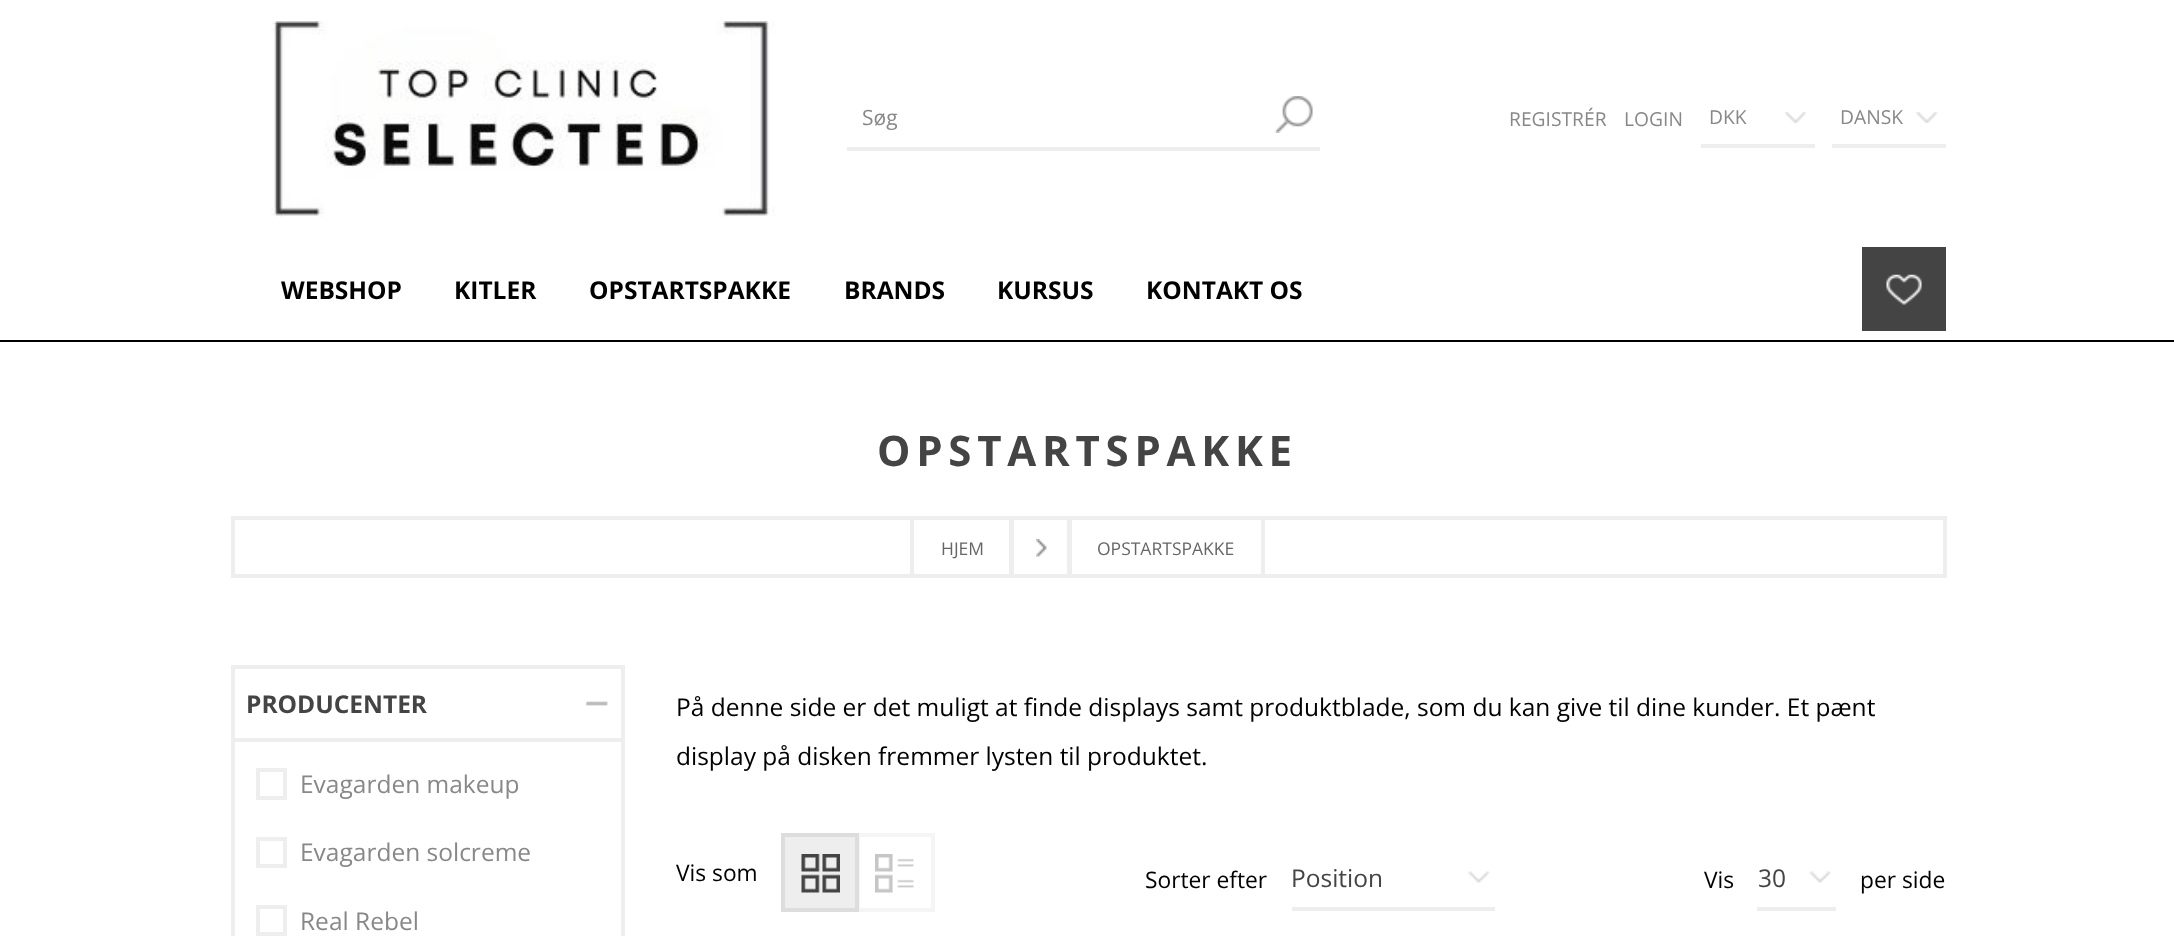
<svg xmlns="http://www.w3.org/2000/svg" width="2174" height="936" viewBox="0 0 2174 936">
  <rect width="100%" height="100%" fill="#ffffff"/>
  <image x="231" y="21" width="581" height="196" href="img1.png"/>
  <rect x="847" y="147" width="473" height="4" fill="#eeeeee"/>
  <text x="862" y="125" font-family="Open Sans" font-size="21" fill="#888888">Søg</text>
  <image x="1275" y="96" width="38" height="37" href="img2.png"/>
  <text x="1509" y="126" font-family="Open Sans" font-size="19.25" fill="#888888">REGISTRÉR</text>
  <text x="1624" y="126" font-family="Open Sans" font-size="19.25" fill="#888888">LOGIN</text>
  <rect x="1701" y="144" width="114" height="4" fill="#eeeeee"/>
  <image x="1785" y="112" width="21" height="12" href="img3.png"/>
  <text x="1709" y="124" font-family="Open Sans" font-size="19.25" fill="#888888">DKK</text>
  <rect x="1832" y="144" width="114" height="4" fill="#eeeeee"/>
  <image x="1916" y="112" width="22" height="12" href="img4.png"/>
  <text x="1840" y="124" font-family="Open Sans" font-size="19.25" fill="#888888">DANSK</text>
  <rect x="0" y="340" width="2174" height="2" fill="#000000"/>
  <text x="281" y="299" font-family="Open Sans" font-size="24.5" font-weight="bold" fill="#000000">WEBSHOP</text>
  <text x="454" y="299" font-family="Open Sans" font-size="24.5" font-weight="bold" fill="#000000">KITLER</text>
  <text x="589" y="299" font-family="Open Sans" font-size="24.5" font-weight="bold" fill="#000000">OPSTARTSPAKKE</text>
  <text x="844" y="299" font-family="Open Sans" font-size="24.5" font-weight="bold" fill="#000000">BRANDS</text>
  <text x="997" y="299" font-family="Open Sans" font-size="24.5" font-weight="bold" fill="#000000">KURSUS</text>
  <text x="1146" y="299" font-family="Open Sans" font-size="24.5" font-weight="bold" fill="#000000">KONTAKT OS</text>
  <rect x="1862" y="247" width="84" height="84" fill="#444444"/>
  <image x="1886" y="274" width="36" height="31" href="img5.png"/>
  <rect x="233" y="667" width="390" height="73" fill="none" stroke="#eeeeee" stroke-width="4"/>
  <image x="585" y="701" width="23" height="5" href="img6.png"/>
  <text x="246" y="713" font-family="Open Sans" font-size="24.5" font-weight="bold" fill="#444444">PRODUCENTER</text>
  <rect x="621" y="742" width="4" height="194" fill="#eeeeee"/>
  <rect x="231" y="742" width="4" height="194" fill="#eeeeee"/>
  <rect x="258" y="770" width="27" height="28" fill="none" stroke="#eeeeee" stroke-width="4"/>
  <text x="300" y="793" font-family="Open Sans" font-size="24.5" fill="#888888">Evagarden makeup</text>
  <rect x="258" y="839" width="27" height="27" fill="none" stroke="#eeeeee" stroke-width="4"/>
  <text x="300" y="861" font-family="Open Sans" font-size="24.5" fill="#888888">Evagarden solcreme</text>
  <rect x="258" y="907" width="27" height="27" fill="none" stroke="#eeeeee" stroke-width="4"/>
  <text x="300" y="930" font-family="Open Sans" font-size="24.5" fill="#888888">Real Rebel</text>
  <text x="877" y="466" font-family="Open Sans" font-size="42" font-weight="bold" letter-spacing="5.75" fill="#444444">OPSTARTSPAKKE</text>
  <text x="676" y="716" font-family="Open Sans" font-size="24.5" fill="#000000">På denne side er det muligt at finde displays samt produktblade, som du kan give til dine kunder. Et pænt</text>
  <text x="676" y="765" font-family="Open Sans" font-size="24.5" fill="#000000">display på disken fremmer lysten til produktet.</text>
  <text x="676" y="881" font-family="Open Sans" font-size="22.75" fill="#000000">Vis som</text>
  <rect x="785" y="837" width="70" height="71" fill="#eeeeee"/>
  <image x="801" y="854" width="39" height="39" href="img7.png"/>
  <rect x="783" y="835" width="74" height="75" fill="none" stroke="#dddddd" stroke-width="4"/>
  <image x="875" y="854" width="39" height="39" href="img8.png"/>
  <rect x="858" y="835" width="75" height="75" fill="none" stroke="#dddddd" stroke-opacity="0.3" stroke-width="4"/>
  <text x="1145" y="888" font-family="Open Sans" font-size="22.75" fill="#000000">Sorter efter</text>
  <image x="1468" y="871" width="22" height="12" href="img9.png"/>
  <rect x="1292" y="907" width="203" height="4" fill="#eeeeee"/>
  <text x="1291" y="887" font-family="Open Sans" font-size="24.5" fill="#444444">Position</text>
  <text x="1704" y="888" font-family="Open Sans" font-size="22.75" fill="#000000">Vis</text>
  <image x="1809" y="871" width="22" height="12" href="img10.png"/>
  <rect x="1757" y="907" width="79" height="4" fill="#eeeeee"/>
  <text x="1758" y="887" font-family="Open Sans" font-size="24.5" fill="#444444">30</text>
  <text x="1860" y="888" font-family="Open Sans" font-size="22.75" fill="#000000">per side</text>
  <rect x="231" y="516" width="1715" height="4" fill="#eeeeee"/>
  <rect x="1943" y="516" width="4" height="62" fill="#eeeeee"/>
  <rect x="231" y="516" width="4" height="62" fill="#eeeeee"/>
  <rect x="912" y="518" width="99" height="58" fill="none" stroke="#eeeeee" stroke-width="4"/>
  <text x="941" y="555" font-family="Open Sans" font-size="17.5" fill="#666666">HJEM</text>
  <image x="1036" y="539" width="11" height="18" href="img11.png"/>
  <rect x="1012" y="518" width="57" height="58" fill="none" stroke="#eeeeee" stroke-width="4"/>
  <rect x="1070" y="518" width="193" height="58" fill="none" stroke="#eeeeee" stroke-width="4"/>
  <text x="1097" y="555" font-family="Open Sans" font-size="17.5" fill="#666666">OPSTARTSPAKKE</text>
  <rect x="235" y="574" width="1708" height="4" fill="#eeeeee"/>
</svg>
